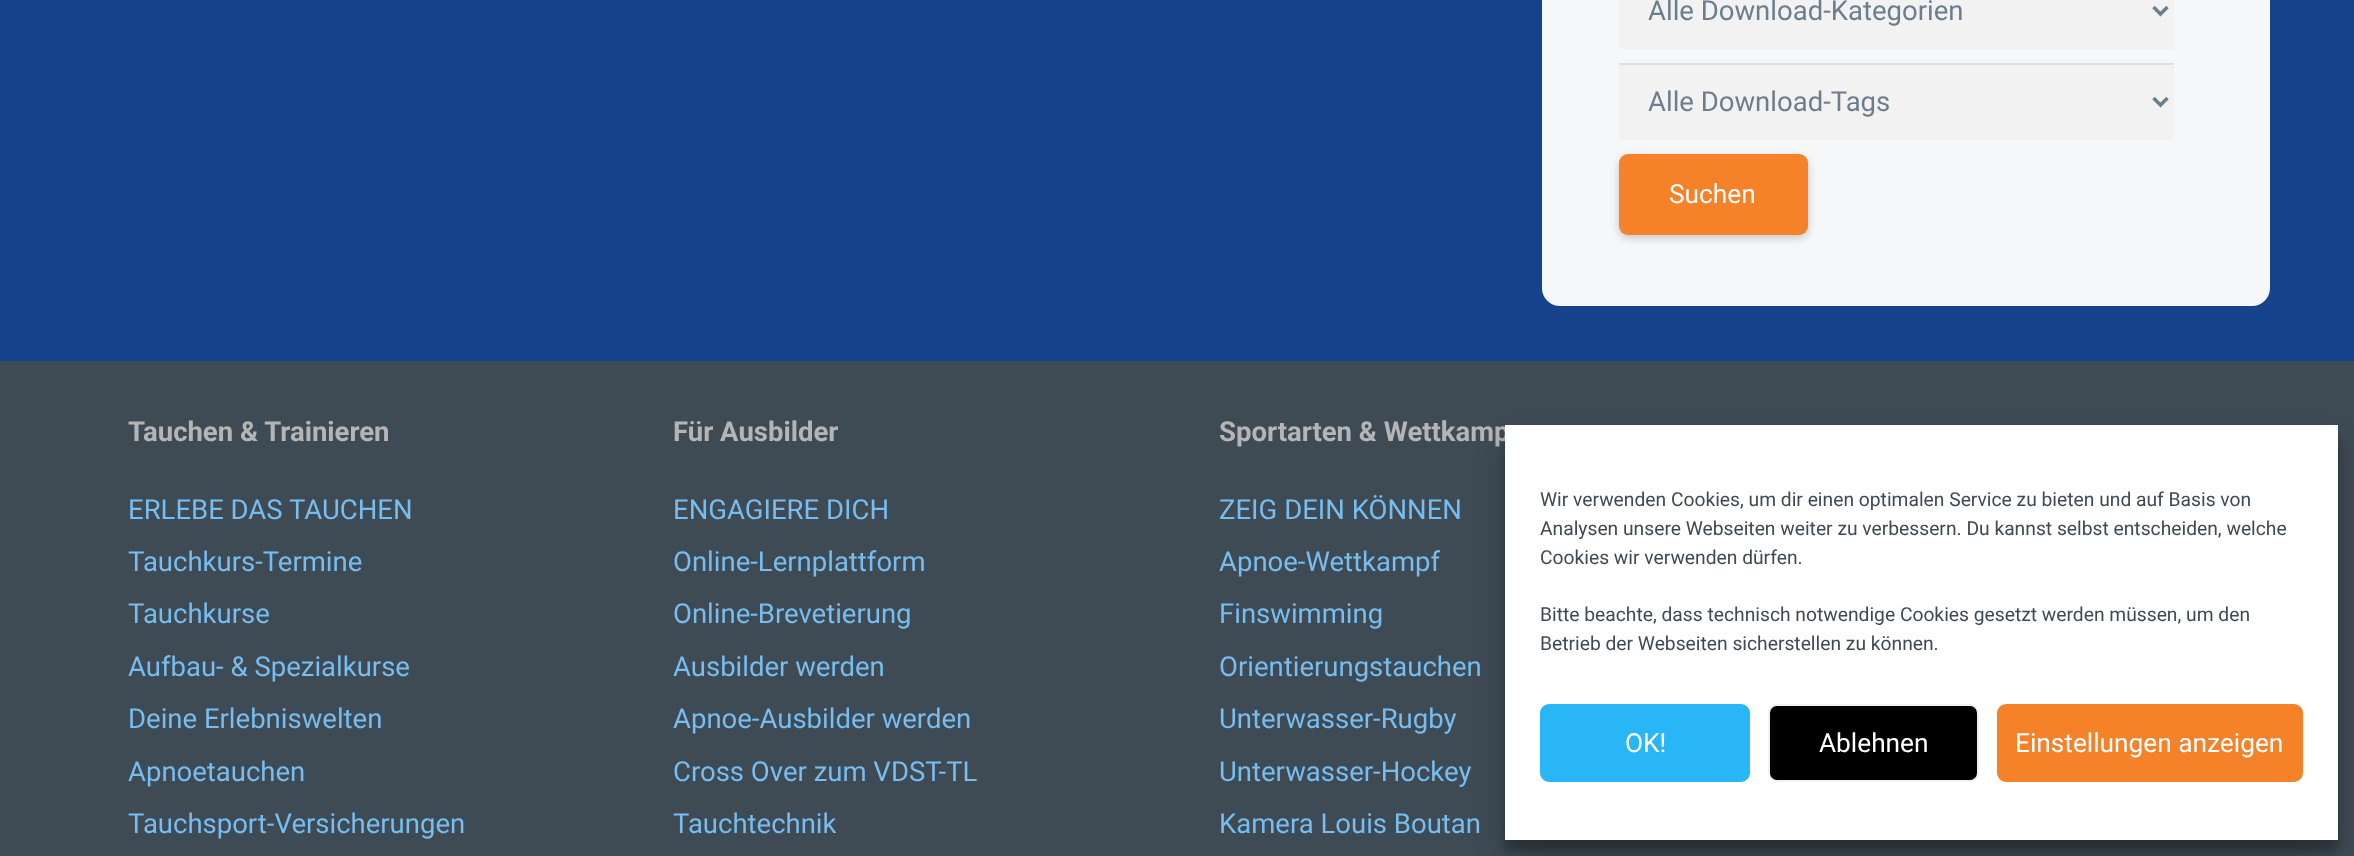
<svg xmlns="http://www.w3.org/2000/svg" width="2354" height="856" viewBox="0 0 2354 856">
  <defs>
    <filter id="blur1" x="-50%" y="-200%" width="200%" height="500%"><feGaussianBlur stdDeviation="4"/></filter>
    <filter id="blur2" x="-50%" y="-200%" width="200%" height="500%"><feGaussianBlur stdDeviation="5"/></filter>
    <filter id="blur3" x="-50%" y="-200%" width="200%" height="500%"><feGaussianBlur stdDeviation="17.5"/></filter>
  </defs>
  <rect width="100%" height="100%" fill="#17428c"/>
  <rect x="1542" y="-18" width="728" height="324" rx="18" fill="#f6f7f9"/>
  <rect x="1619" y="0" width="555" height="49" fill="#f2f2f2"/>
  <path d="M2153.5 7L2160.5 14L2167.5 7" fill="none" stroke="#6b7e8c" stroke-width="3.5"/>
  <text x="1648" y="20" font-family="Roboto" font-size="27.5" fill="#6b7e8c">Alle Download-Kategorien</text>
  <rect x="1619" y="65" width="555" height="75" fill="#f2f2f2"/>
  <rect x="1619" y="63" width="555" height="2" fill="#dfdfdf"/>
  <path d="M2153.5 98L2160.5 105L2167.5 98" fill="none" stroke="#6b7e8c" stroke-width="3.5"/>
  <text x="1648" y="111" font-family="Roboto" font-size="27.5" fill="#6b7e8c">Alle Download-Tags</text>
  <rect x="1619" y="158" width="189" height="80" rx="9" fill="#000000" fill-opacity="0.2" filter="url(#blur1)"/>
  <rect x="1619" y="154" width="189" height="81" rx="9" fill="#f58229"/>
  <text x="1669" y="203" font-family="Roboto" font-size="26.25" fill="#ffffff">Suchen</text>
  <rect x="0" y="361" width="2354" height="495" fill="#3e4a54"/>
  <text x="128" y="441" font-family="Roboto" font-size="27.5" font-weight="bold" fill="#b5b5b5">Tauchen &amp; Trainieren</text>
  <text x="128" y="519" font-family="Roboto" font-size="27.5" fill="#77bdef">ERLEBE DAS TAUCHEN</text>
  <text x="128" y="571" font-family="Roboto" font-size="27.5" fill="#77bdef">Tauchkurs-Termine</text>
  <text x="128" y="623" font-family="Roboto" font-size="27.5" fill="#77bdef">Tauchkurse</text>
  <text x="128" y="676" font-family="Roboto" font-size="27.5" fill="#77bdef">Aufbau- &amp; Spezialkurse</text>
  <text x="128" y="728" font-family="Roboto" font-size="27.5" fill="#77bdef">Deine Erlebniswelten</text>
  <text x="128" y="781" font-family="Roboto" font-size="27.5" fill="#77bdef">Apnoetauchen</text>
  <text x="128" y="833" font-family="Roboto" font-size="27.5" fill="#77bdef">Tauchsport-Versicherungen</text>
  <text x="673" y="441" font-family="Roboto" font-size="27.5" font-weight="bold" fill="#b5b5b5">Für Ausbilder</text>
  <text x="673" y="519" font-family="Roboto" font-size="27.5" fill="#77bdef">ENGAGIERE DICH</text>
  <text x="673" y="571" font-family="Roboto" font-size="27.5" fill="#77bdef">Online-Lernplattform</text>
  <text x="673" y="623" font-family="Roboto" font-size="27.5" fill="#77bdef">Online-Brevetierung</text>
  <text x="673" y="676" font-family="Roboto" font-size="27.5" fill="#77bdef">Ausbilder werden</text>
  <text x="673" y="728" font-family="Roboto" font-size="27.5" fill="#77bdef">Apnoe-Ausbilder werden</text>
  <text x="673" y="781" font-family="Roboto" font-size="27.5" fill="#77bdef">Cross Over zum VDST-TL</text>
  <text x="673" y="833" font-family="Roboto" font-size="27.5" fill="#77bdef">Tauchtechnik</text>
  <text x="1219" y="441" font-family="Roboto" font-size="27.5" font-weight="bold" fill="#b5b5b5">Sportarten &amp; Wettkamp</text>
  <text x="1219" y="519" font-family="Roboto" font-size="27.5" fill="#77bdef">ZEIG DEIN KÖNNEN</text>
  <text x="1219" y="571" font-family="Roboto" font-size="27.5" fill="#77bdef">Apnoe-Wettkampf</text>
  <text x="1219" y="623" font-family="Roboto" font-size="27.5" fill="#77bdef">Finswimming</text>
  <text x="1219" y="676" font-family="Roboto" font-size="27.5" fill="#77bdef">Orientierungstauchen</text>
  <text x="1219" y="728" font-family="Roboto" font-size="27.5" fill="#77bdef">Unterwasser-Rugby</text>
  <text x="1219" y="781" font-family="Roboto" font-size="27.5" fill="#77bdef">Unterwasser-Hockey</text>
  <text x="1219" y="833" font-family="Roboto" font-size="27.5" fill="#77bdef">Kamera Louis Boutan</text>
  <rect x="1505" y="436" width="833" height="415" fill="#000000" fill-opacity="0.23" filter="url(#blur2)"/>
  <rect x="1505" y="443" width="833" height="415" fill="#000000" fill-opacity="0.19" filter="url(#blur3)"/>
  <rect x="1505" y="425" width="833" height="415" fill="#ffffff"/>
  <text x="1540" y="506" font-family="Roboto" font-size="19.25" fill="#3e4a54">Wir verwenden Cookies, um dir einen optimalen Service zu bieten und auf Basis von</text>
  <text x="1540" y="535" font-family="Roboto" font-size="19.25" fill="#3e4a54">Analysen unsere Webseiten weiter zu verbessern. Du kannst selbst entscheiden, welche</text>
  <text x="1540" y="564" font-family="Roboto" font-size="19.25" fill="#3e4a54">Cookies wir verwenden dürfen.</text>
  <text x="1540" y="621" font-family="Roboto" font-size="19.25" fill="#3e4a54">Bitte beachte, dass technisch notwendige Cookies gesetzt werden müssen, um den</text>
  <text x="1540" y="650" font-family="Roboto" font-size="19.25" fill="#3e4a54">Betrieb der Webseiten sicherstellen zu können.</text>
  <rect x="1541" y="705" width="208" height="76" rx="8" fill="#29b6f6" stroke="#29b6f6" stroke-width="2"/>
  <text x="1625" y="752" font-family="Roboto" font-size="26.25" fill="#ffffff">OK!</text>
  <rect x="1769" y="705" width="209" height="76" rx="8" fill="#000000" stroke="#f1f1f1" stroke-width="2"/>
  <text x="1819" y="752" font-family="Roboto" font-size="26.25" fill="#ffffff">Ablehnen</text>
  <rect x="1998" y="705" width="304" height="76" rx="8" fill="#f58229" stroke="#f58229" stroke-width="2"/>
  <text x="2015" y="752" font-family="Roboto" font-size="26.25" fill="#ffffff">Einstellungen anzeigen</text>
</svg>
